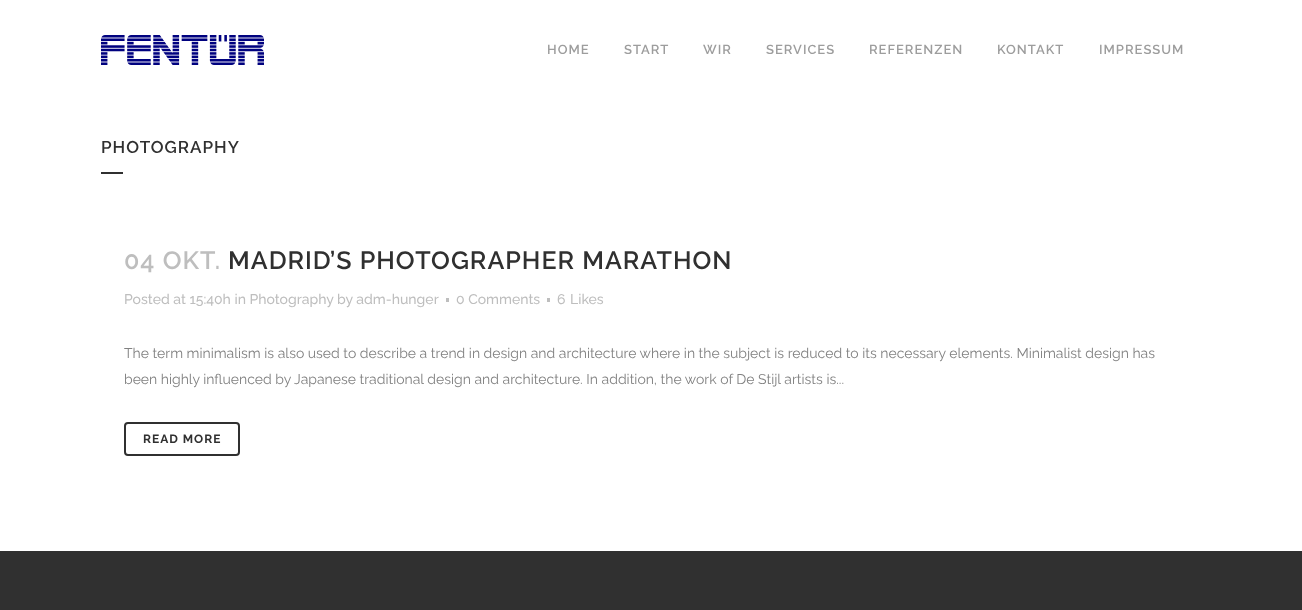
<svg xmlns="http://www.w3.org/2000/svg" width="1302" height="610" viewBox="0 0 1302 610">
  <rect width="100%" height="100%" fill="#303030"/>
  <rect x="0" y="0" width="1302" height="551" fill="#ffffff"/>
  <image x="101" y="35" width="163" height="30" href="img1.png"/>
  <text x="547" y="54" font-family="Raleway" font-size="13" font-weight="600" letter-spacing="1" fill="#9d9d9d">HOME</text>
  <text x="624" y="54" font-family="Raleway" font-size="13" font-weight="600" letter-spacing="1" fill="#9d9d9d">START</text>
  <text x="703" y="54" font-family="Raleway" font-size="13" font-weight="600" letter-spacing="1" fill="#9d9d9d">WIR</text>
  <text x="766" y="54" font-family="Raleway" font-size="13" font-weight="600" letter-spacing="1" fill="#9d9d9d">SERVICES</text>
  <text x="869" y="54" font-family="Raleway" font-size="13" font-weight="600" letter-spacing="1" fill="#9d9d9d">REFERENZEN</text>
  <text x="997" y="54" font-family="Raleway" font-size="13" font-weight="600" letter-spacing="1" fill="#9d9d9d">KONTAKT</text>
  <text x="1099" y="54" font-family="Raleway" font-size="13" font-weight="600" letter-spacing="1" fill="#9d9d9d">IMPRESSUM</text>
  <text x="101" y="153" font-family="Raleway" font-size="17" font-weight="600" letter-spacing="1" fill="#303030">PHOTOGRAPHY</text>
  <rect x="101" y="172" width="22" height="2" fill="#303030"/>
  <text x="124" y="269" font-family="Raleway" font-size="25" font-weight="600" letter-spacing="1" fill="#bebebe">04 OKT.</text>
  <text x="228" y="269" font-family="Raleway" font-size="25" font-weight="600" letter-spacing="1" fill="#303030">MADRID’S PHOTOGRAPHER MARATHON</text>
  <text x="124" y="304" font-family="Raleway" font-size="14" font-weight="500" fill="#bebebe">Posted at 15:40h in Photography</text>
  <text x="337" y="304" font-family="Raleway" font-size="14" font-weight="500" fill="#bebebe">by adm-hunger</text>
  <rect x="446" y="298" width="3" height="4" fill="#bebebe"/>
  <text x="456" y="304" font-family="Raleway" font-size="14" font-weight="500" fill="#bebebe">0 Comments</text>
  <rect x="547" y="298" width="3" height="4" fill="#bebebe"/>
  <text x="557" y="304" font-family="Raleway" font-size="14" font-weight="500" fill="#bebebe">6</text>
  <text x="570" y="304" font-family="Raleway" font-size="14" font-weight="500" fill="#bebebe">Likes</text>
  <text x="124" y="358" font-family="Raleway" font-size="14" fill="#818181">The term minimalism is also used to describe a trend in design and architecture where in the subject is reduced to its necessary elements. Minimalist design has</text>
  <text x="124" y="384" font-family="Raleway" font-size="14" fill="#818181">been highly influenced by Japanese traditional design and architecture. In addition, the work of De Stijl artists is...</text>
  <rect x="125" y="423" width="114" height="32" rx="3" fill="none" stroke="#303030" stroke-width="2"/>
  <text x="143" y="443" font-family="Raleway" font-size="12" font-weight="bold" letter-spacing="1" fill="#303030">READ MORE</text>
</svg>
